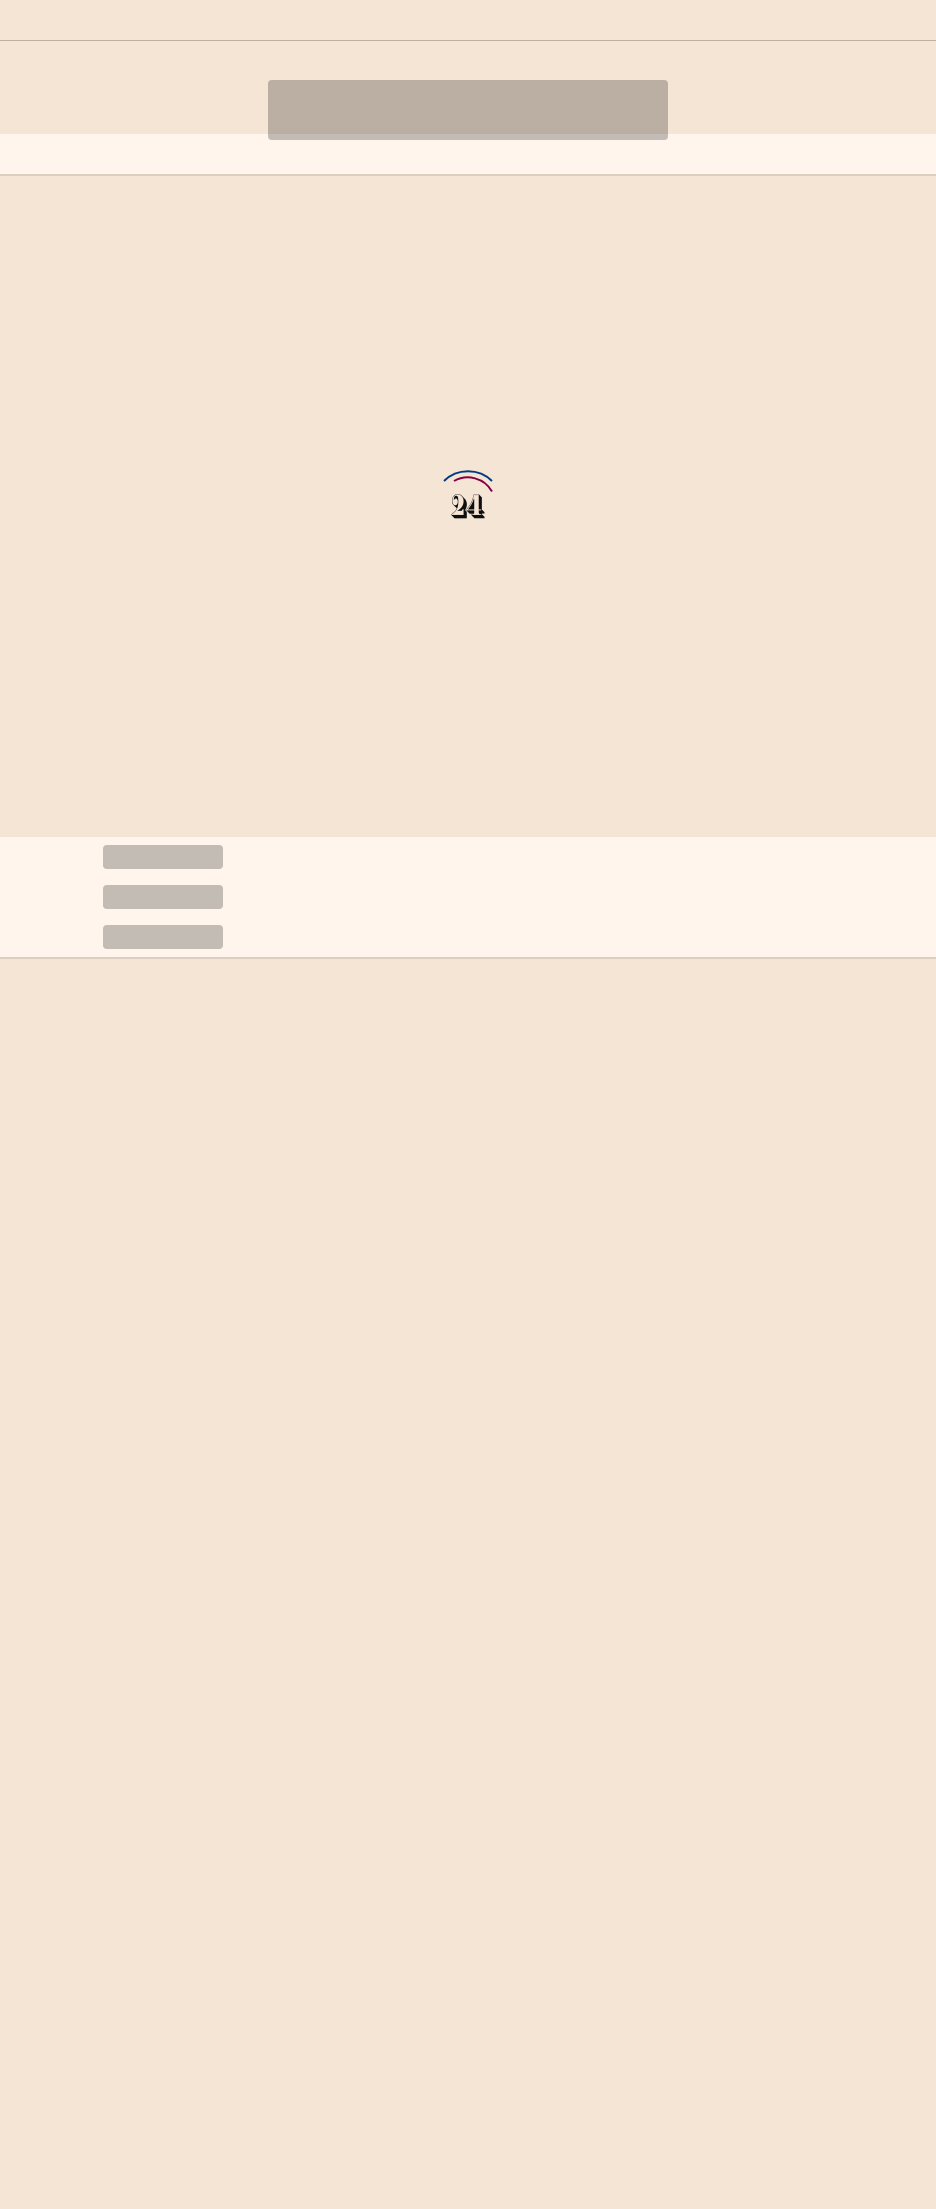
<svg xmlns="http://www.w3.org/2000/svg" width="936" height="2209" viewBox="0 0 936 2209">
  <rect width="100%" height="100%" fill="#f5e5d5"/>
  <rect x="0" y="174" width="936" height="2" fill="#ddcec0"/>
  <rect x="0" y="134" width="936" height="40" fill="#fff5ec"/>
  <rect x="0" y="40" width="936" height="1" fill="#bcb0a4"/>
  <rect x="268" y="80" width="400" height="60" rx="4" fill="#0f0f0f" fill-opacity="0.25"/>
  <path d="M444 481C457 468 479 468 492 481" fill="none" stroke="#003c7f" stroke-width="2"/>
  <path d="M454 481C467 473.5 484.5 478 492 491.5" fill="none" stroke="#870042" stroke-width="2"/>
  <image x="451" y="494" width="34" height="25" href="img1.png"/>
  <rect x="0" y="837" width="936" height="120" fill="#fff5ec"/>
  <rect x="103" y="845" width="120" height="24" rx="4" fill="#c3bcb5"/>
  <rect x="103" y="885" width="120" height="24" rx="4" fill="#c3bcb5"/>
  <rect x="0" y="957" width="936" height="2" fill="#ddcec0"/>
  <rect x="103" y="925" width="120" height="24" rx="4" fill="#c3bcb5"/>
</svg>
